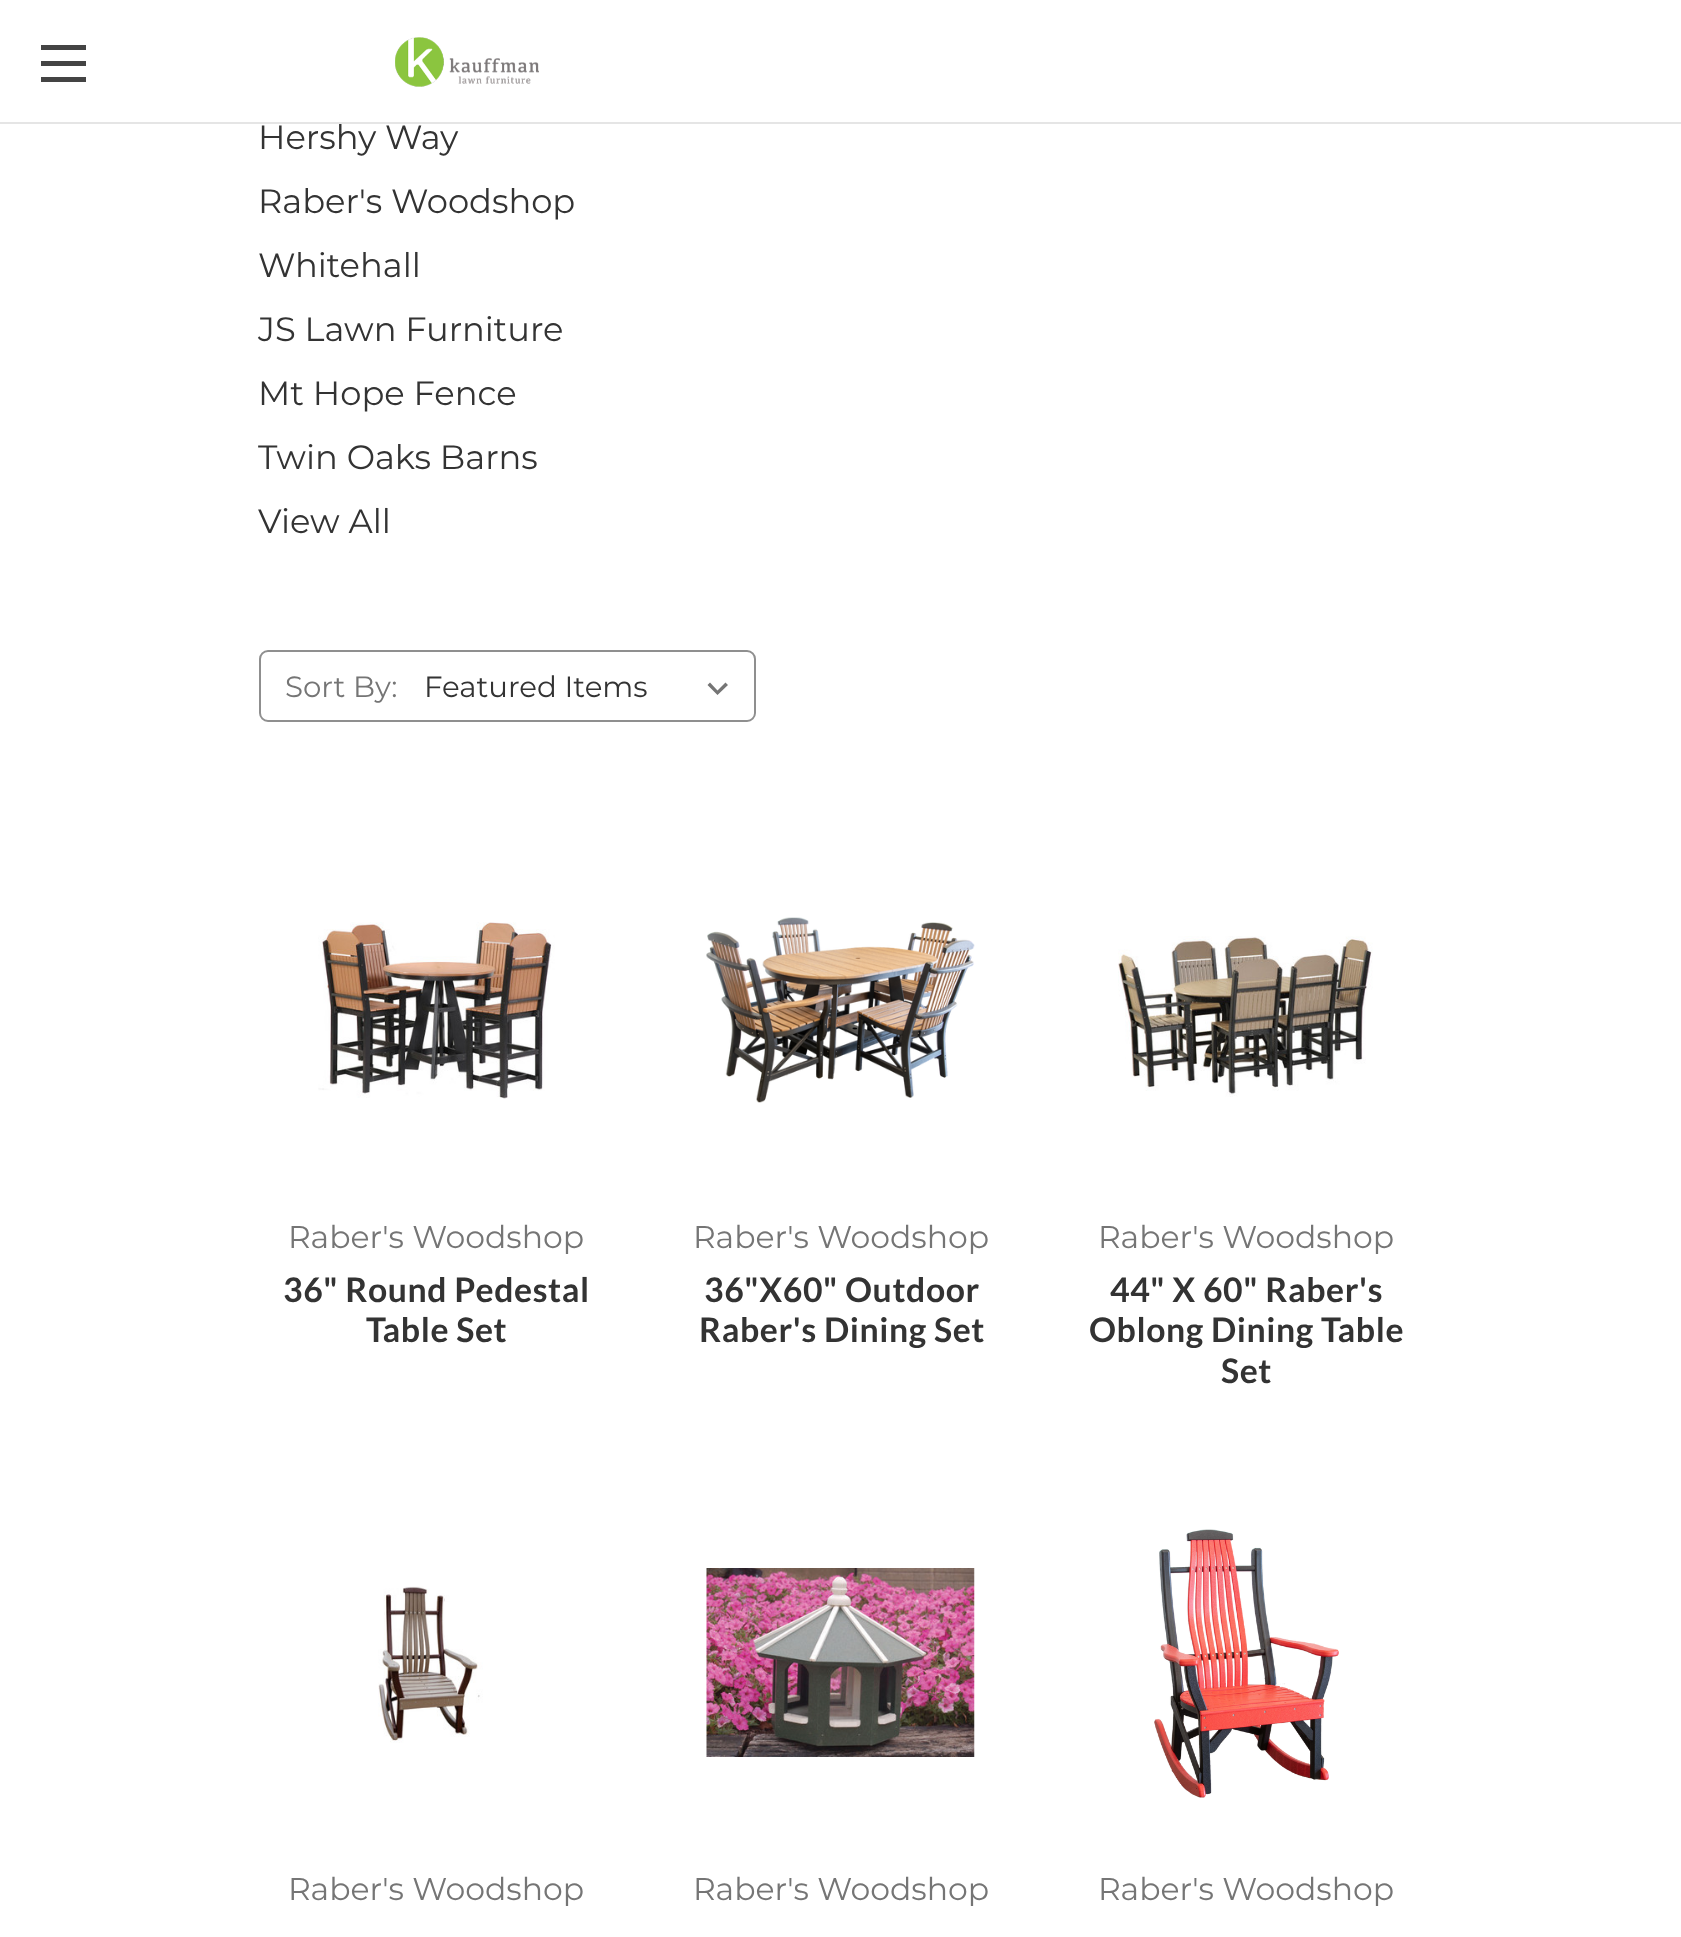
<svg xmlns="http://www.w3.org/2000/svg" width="1681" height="1937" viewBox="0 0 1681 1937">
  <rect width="100%" height="100%" fill="#ffffff"/>
  <text x="258" y="149" font-family="Montserrat" font-size="33.75" fill="#333333">Hershy Way</text>
  <rect x="0" y="122" width="1681" height="2" fill="#e5e5e5"/>
  <rect x="41" y="61" width="45" height="5" fill="#444444"/>
  <rect x="41" y="45" width="45" height="5" fill="#444444"/>
  <rect x="41" y="77" width="45" height="5" fill="#444444"/>
  <image x="395" y="37" width="144" height="50" href="img1.png"/>
  <text x="258" y="213" font-family="Montserrat" font-size="33.75" fill="#333333">Raber's Woodshop</text>
  <text x="258" y="277" font-family="Montserrat" font-size="33.75" fill="#333333">Whitehall</text>
  <text x="258" y="341" font-family="Montserrat" font-size="33.75" fill="#333333">JS Lawn Furniture</text>
  <text x="258" y="405" font-family="Montserrat" font-size="33.75" fill="#333333">Mt Hope Fence</text>
  <text x="258" y="469" font-family="Montserrat" font-size="33.75" fill="#333333">Twin Oaks Barns</text>
  <text x="258" y="533" font-family="Montserrat" font-size="33.75" fill="#333333">View All</text>
  <rect x="260" y="651" width="495" height="70" rx="8" fill="none" stroke="#8f8f8f" stroke-width="2"/>
  <text x="285" y="697" font-family="Montserrat" font-size="29.25" fill="#757575">Sort By:</text>
  <rect x="419" y="653" width="335" height="67" rx="9" fill="#ffffff"/>
  <path d="M725.5 682.5L717.5 690.5L710 682.5L707.5 685L717.5 695L728 685Z" fill="#757575"/>
  <text x="424" y="697" font-family="Montserrat" font-size="29.25" fill="#333333">Featured Items</text>
  <image x="318" y="922" width="237" height="177" href="img2.png"/>
  <text x="288" y="1248" font-family="Montserrat" font-size="31.5" fill="#757575">Raber's Woodshop</text>
  <text x="283" y="1302" font-family="Lato" font-size="33.75" font-weight="bold" letter-spacing="0.6" fill="#333333">36" Round Pedestal</text>
  <text x="366" y="1342" font-family="Lato" font-size="33.75" font-weight="bold" letter-spacing="0.6" fill="#333333">Table Set</text>
  <image x="706" y="917" width="269" height="186" href="img3.png"/>
  <text x="693" y="1248" font-family="Montserrat" font-size="31.5" fill="#757575">Raber's Woodshop</text>
  <text x="704" y="1302" font-family="Lato" font-size="33.75" font-weight="bold" letter-spacing="0.6" fill="#333333">36"X60" Outdoor</text>
  <text x="699" y="1342" font-family="Lato" font-size="33.75" font-weight="bold" letter-spacing="0.6" fill="#333333">Raber's Dining Set</text>
  <image x="1118" y="936" width="255" height="161" href="img4.png"/>
  <text x="1098" y="1248" font-family="Montserrat" font-size="31.5" fill="#757575">Raber's Woodshop</text>
  <text x="1110" y="1302" font-family="Lato" font-size="33.75" font-weight="bold" letter-spacing="0.6" fill="#333333">44" X 60" Raber's</text>
  <text x="1089" y="1342" font-family="Lato" font-size="33.75" font-weight="bold" letter-spacing="0.6" fill="#333333">Oblong Dining Table</text>
  <text x="1221" y="1383" font-family="Lato" font-size="33.75" font-weight="bold" letter-spacing="0.6" fill="#333333">Set</text>
  <image x="378" y="1586" width="105" height="157" href="img5.png"/>
  <text x="288" y="1900" font-family="Montserrat" font-size="31.5" fill="#757575">Raber's Woodshop</text>
  <image x="706" y="1568" width="269" height="189" href="img6.png"/>
  <text x="693" y="1900" font-family="Montserrat" font-size="31.5" fill="#757575">Raber's Woodshop</text>
  <image x="1154" y="1529" width="185" height="269" href="img7.png"/>
  <text x="1098" y="1900" font-family="Montserrat" font-size="31.5" fill="#757575">Raber's Woodshop</text>
</svg>
